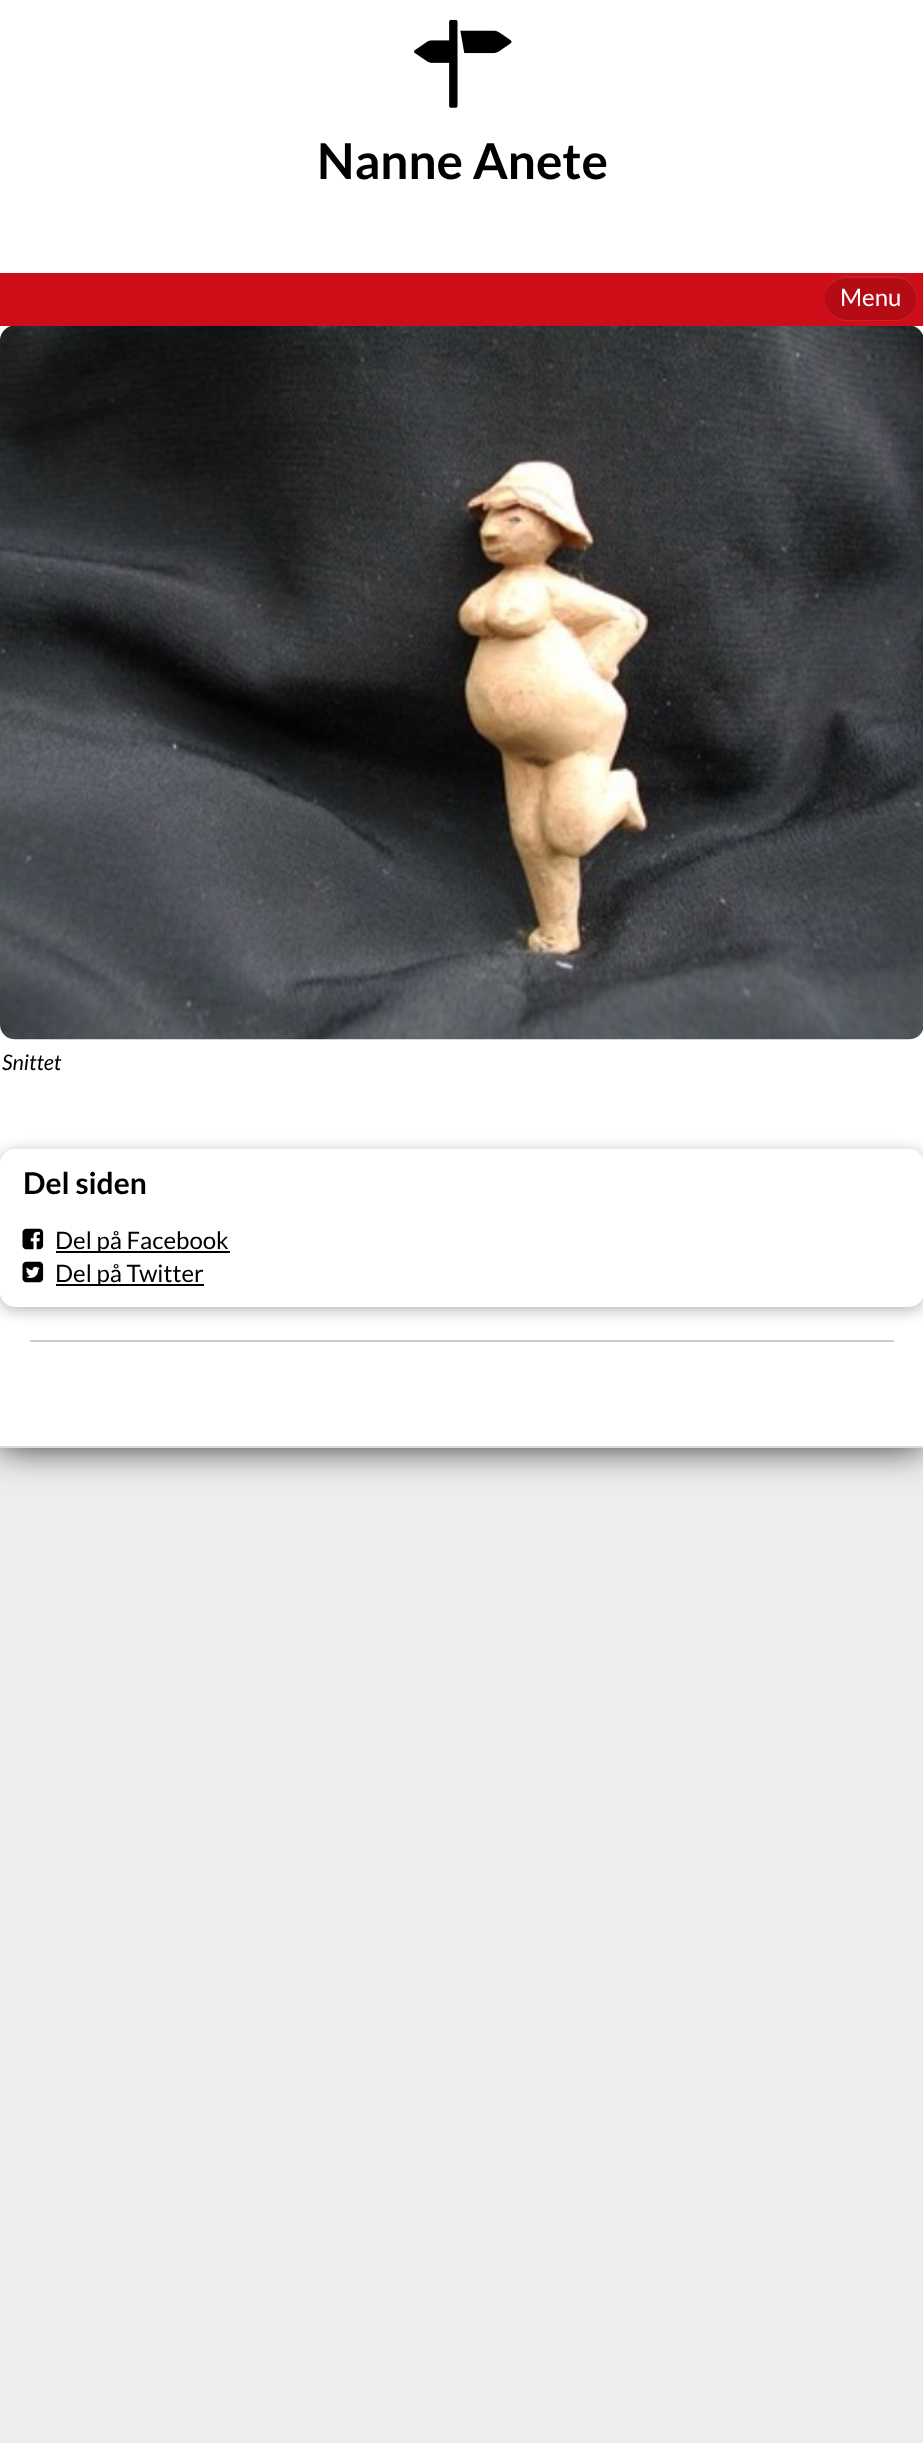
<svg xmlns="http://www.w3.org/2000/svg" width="923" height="2443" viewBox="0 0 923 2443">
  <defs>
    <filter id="blur1" x="-50%" y="-200%" width="200%" height="500%"><feGaussianBlur stdDeviation="18"/></filter>
    <filter id="blur2" x="-50%" y="-200%" width="200%" height="500%"><feGaussianBlur stdDeviation="7.5"/></filter>
  </defs>
  <rect width="100%" height="100%" fill="#ededed"/>
  <rect x="0" y="0" width="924" height="1448" fill="#000000" fill-opacity="0.8" filter="url(#blur1)"/>
  <rect x="0" y="0" width="923" height="1446" fill="#ffffff"/>
  <rect x="0" y="1446" width="923" height="2" fill="#d9d9d9"/>
  <image x="414" y="19" width="98" height="89" href="img1.png"/>
  <text x="317" y="179" font-family="Lato" font-size="49.5" font-weight="bold" fill="#000000">Nanne Anete</text>
  <rect x="0" y="273" width="923" height="53" fill="#cd0d18"/>
  <path d="M825 299V300C825 311 835 321 846 321H896C907 321 917 311 917 300C917 297 917 295 916 293V298C916 310 907 320 895 320H847C835 320 825 310 825 299Z" fill="#d11f29"/>
  <rect x="825" y="276" width="92" height="44" rx="22" fill="#b50b15"/>
  <path d="M847 278H895C907 278 916 287 916 299C916 304 915 308 912 312C915 308 917 303 917 298C917 286 907 276 895 276H847C835 276 825 286 825 298V299C825 287 835 278 847 278Z" fill="#ffffff" fill-opacity="0.1"/>
  <text x="840" y="306" font-family="Lato" font-size="24" fill="#ffffff">Menu</text>
  <image x="0" y="326" width="923" height="714" href="img2.png"/>
  <text x="2" y="1070" font-family="Lato" font-size="21.5" font-style="italic" fill="#000000">Snittet</text>
  <rect x="0" y="1152" width="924" height="158" rx="15" fill="#000000" fill-opacity="0.29" filter="url(#blur2)"/>
  <rect x="0" y="1149" width="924" height="158" rx="15" fill="#ffffff"/>
  <text x="23" y="1194" font-family="Lato" font-size="30" font-weight="bold" fill="#000000">Del siden</text>
  <image x="22" y="1228" width="22" height="22" href="img3.png"/>
  <rect x="56" y="1251" width="174" height="2" fill="#000000"/>
  <text x="55" y="1249" font-family="Lato" font-size="24" fill="#000000">Del på Facebook</text>
  <image x="22" y="1261" width="22" height="22" href="img4.png"/>
  <rect x="56" y="1284" width="148" height="2" fill="#000000"/>
  <text x="55" y="1282" font-family="Lato" font-size="24" fill="#000000">Del på Twitter</text>
  <rect x="30" y="1340" width="864" height="2" fill="#cccccc"/>
</svg>
